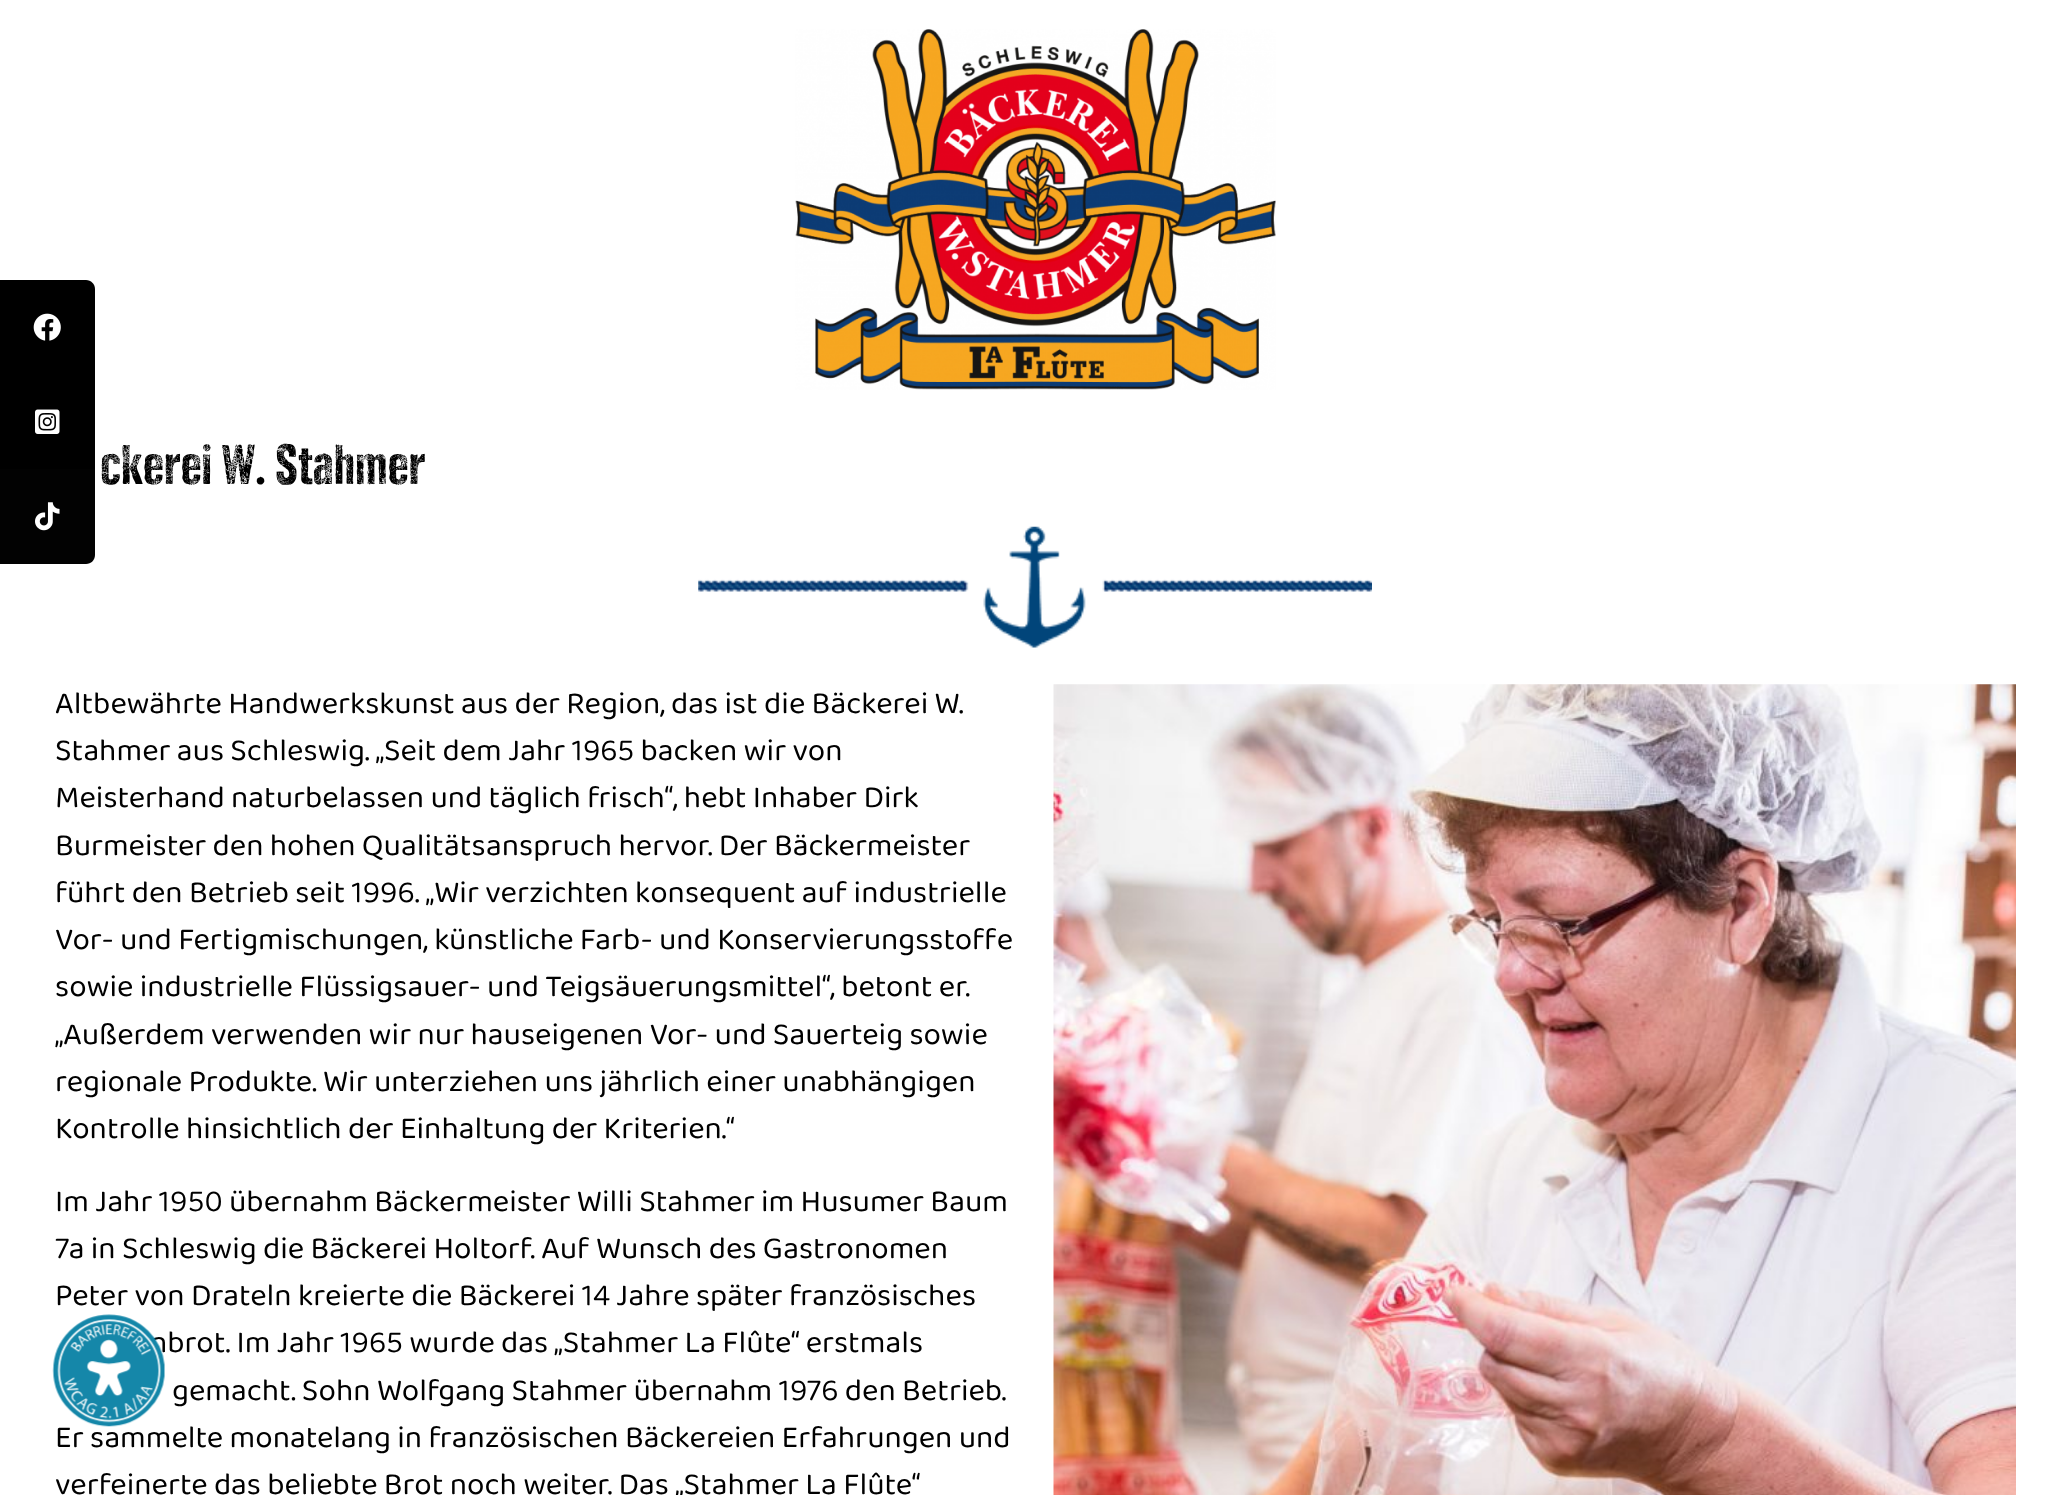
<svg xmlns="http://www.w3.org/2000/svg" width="2069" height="1495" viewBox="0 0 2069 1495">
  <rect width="100%" height="100%" fill="#ffffff"/>
  <path d="M0 280H86C91 280 95 284 95 289V375H0Z" fill="#000000"/>
  <image x="33" y="313" width="28" height="28" href="img1.png"/>
  <rect x="0" y="375" width="95" height="94" fill="#000000"/>
  <image x="35" y="409" width="25" height="25" href="img2.png"/>
  <path d="M0 469H95V555C95 560 91 564 86 564H0Z" fill="#020202"/>
  <image x="35" y="502" width="25" height="29" href="img3.png"/>
  <image x="795" y="29" width="481" height="361" href="img4.png"/>
  <text x="100" y="484" font-family="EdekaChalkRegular" font-size="56" fill="#000000">ckerei W. Stahmer</text>
  <image x="698" y="526" width="674" height="122" href="img5.png"/>
  <text x="55" y="713" font-family="'Baloo Bhaina 2'" font-size="31.5" fill="#000000">Altbewährte Handwerkskunst aus der Region, das ist die Bäckerei W.</text>
  <text x="55" y="760" font-family="'Baloo Bhaina 2'" font-size="31.5" fill="#000000">Stahmer aus Schleswig. „Seit dem Jahr 1965 backen wir von</text>
  <text x="55" y="807" font-family="'Baloo Bhaina 2'" font-size="31.5" fill="#000000">Meisterhand naturbelassen und täglich frisch“, hebt Inhaber Dirk</text>
  <text x="55" y="855" font-family="'Baloo Bhaina 2'" font-size="31.5" fill="#000000">Burmeister den hohen Qualitätsanspruch hervor. Der Bäckermeister</text>
  <text x="55" y="902" font-family="'Baloo Bhaina 2'" font-size="31.5" fill="#000000">führt den Betrieb seit 1996. „Wir verzichten konsequent auf industrielle</text>
  <text x="55" y="949" font-family="'Baloo Bhaina 2'" font-size="31.5" fill="#000000">Vor- und Fertigmischungen, künstliche Farb- und Konservierungsstoffe</text>
  <text x="55" y="996" font-family="'Baloo Bhaina 2'" font-size="31.5" fill="#000000">sowie industrielle Flüssigsauer- und Teigsäuerungsmittel“, betont er.</text>
  <text x="55" y="1044" font-family="'Baloo Bhaina 2'" font-size="31.5" fill="#000000">„Außerdem verwenden wir nur hauseigenen Vor- und Sauerteig sowie</text>
  <text x="55" y="1091" font-family="'Baloo Bhaina 2'" font-size="31.5" fill="#000000">regionale Produkte. Wir unterziehen uns jährlich einer unabhängigen</text>
  <text x="55" y="1138" font-family="'Baloo Bhaina 2'" font-size="31.5" fill="#000000">Kontrolle hinsichtlich der Einhaltung der Kriterien.“</text>
  <text x="55" y="1211" font-family="'Baloo Bhaina 2'" font-size="31.5" fill="#000000">Im Jahr 1950 übernahm Bäckermeister Willi Stahmer im Husumer Baum</text>
  <text x="55" y="1258" font-family="'Baloo Bhaina 2'" font-size="31.5" fill="#000000">7a in Schleswig die Bäckerei Holtorf. Auf Wunsch des Gastronomen</text>
  <text x="55" y="1305" font-family="'Baloo Bhaina 2'" font-size="31.5" fill="#000000">Peter von Drateln kreierte die Bäckerei 14 Jahre später französisches</text>
  <text x="150" y="1352" font-family="'Baloo Bhaina 2'" font-size="31.5" fill="#000000">nbrot. Im Jahr 1965 wurde das „Stahmer La Flûte“ erstmals</text>
  <text x="172" y="1400" font-family="'Baloo Bhaina 2'" font-size="31.5" fill="#000000">gemacht. Sohn Wolfgang Stahmer übernahm 1976 den Betrieb.</text>
  <text x="55" y="1447" font-family="'Baloo Bhaina 2'" font-size="31.5" fill="#000000">Er sammelte monatelang in französischen Bäckereien Erfahrungen und</text>
  <text x="55" y="1494" font-family="'Baloo Bhaina 2'" font-size="31.5" fill="#000000">verfeinerte das beliebte Brot noch weiter. Das „Stahmer La Flûte“</text>
  <image x="1053" y="684" width="963" height="811" href="img6.png"/>
  <image x="52" y="1314" width="113" height="113" href="img7.png"/>
</svg>
